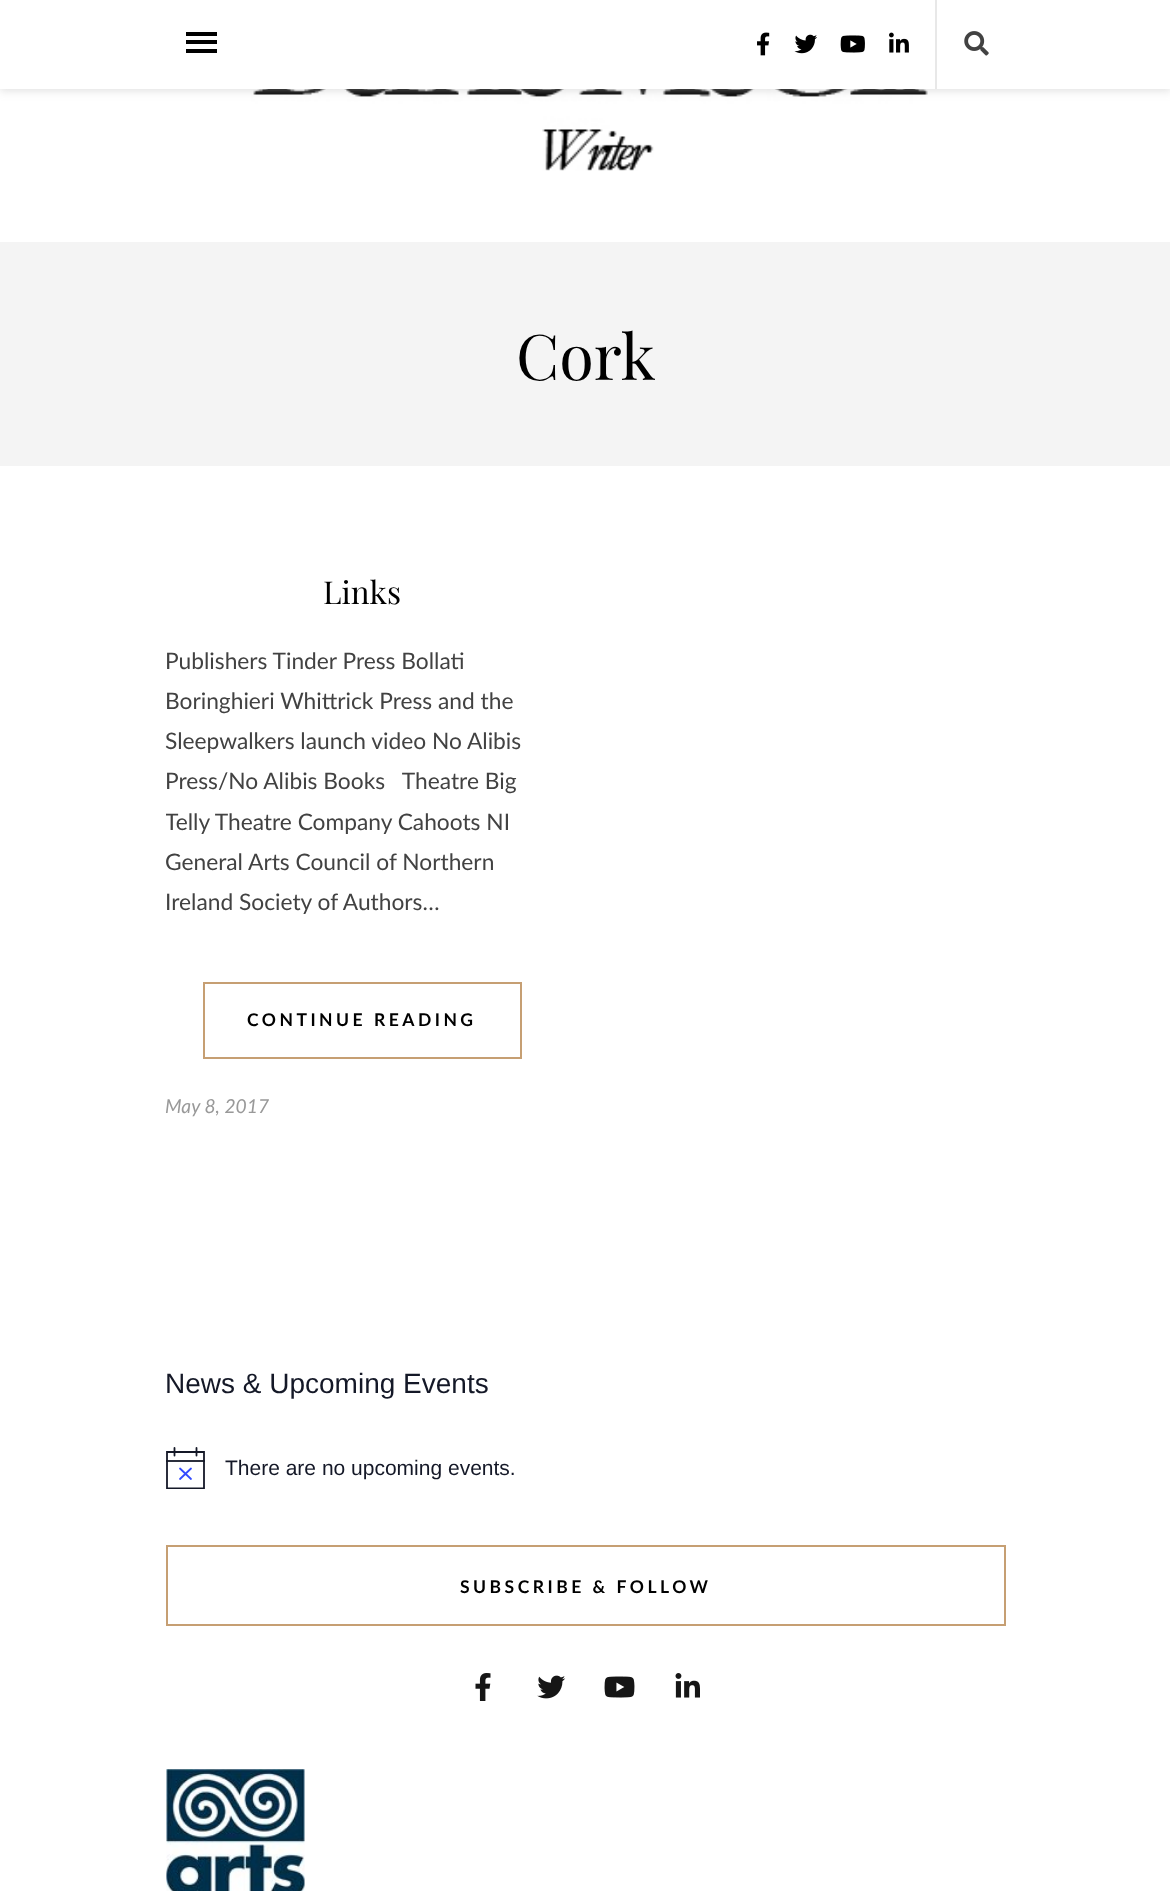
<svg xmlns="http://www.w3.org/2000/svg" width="1170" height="1891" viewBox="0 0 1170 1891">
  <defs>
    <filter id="blur1" x="-50%" y="-200%" width="200%" height="500%"><feGaussianBlur stdDeviation="4.5"/></filter>
    <clipPath id="clip1"><rect x="166" y="571" width="840" height="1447"/></clipPath>
    <clipPath id="clip2"><rect x="166" y="1447" width="39" height="42"/></clipPath>
  </defs>
  <rect width="100%" height="100%" fill="#ffffff"/>
  <image x="251" y="89" width="677" height="82" href="img6.png"/>
  <rect x="0" y="2" width="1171" height="89" fill="#bebebe" fill-opacity="0.46" filter="url(#blur1)"/>
  <rect x="0" y="0" width="1170" height="89" fill="#ffffff"/>
  <rect x="186" y="32" width="31" height="4" fill="#000000"/>
  <rect x="186" y="40" width="31" height="4" fill="#000000"/>
  <rect x="186" y="49" width="31" height="4" fill="#000000"/>
  <image x="757" y="32" width="13" height="24" href="img1.png"/>
  <image x="794" y="34" width="23" height="20" href="img2.png"/>
  <image x="840" y="35" width="25" height="18" href="img3.png"/>
  <image x="889" y="32" width="20" height="21" href="img4.png"/>
  <rect x="935" y="0" width="2" height="89" fill="#e8e8e8"/>
  <image x="964" y="31" width="25" height="25" href="img5.png"/>
  <rect x="0" y="242" width="1170" height="224" fill="#f4f4f4"/>
  <text x="516" y="380" font-family="Playfair Display" font-size="63" fill="#000000">Cork</text>
  <text x="323" y="604" font-family="Playfair Display" font-size="31.5" fill="#000000">Links</text>
  <text x="165" y="669" font-family="Lato" font-size="22.75" fill="#424242">Publishers Tinder Press Bollati</text>
  <text x="165" y="709" font-family="Lato" font-size="22.75" fill="#424242">Boringhieri Whittrick Press and the</text>
  <text x="165" y="749" font-family="Lato" font-size="22.75" fill="#424242">Sleepwalkers launch video No Alibis</text>
  <text x="165" y="789" font-family="Lato" font-size="22.75" fill="#424242" xml:space="preserve">Press/No Alibis Books   Theatre Big</text>
  <g clip-path="url(#clip1)">
    <text x="165" y="830" font-family="Lato" font-size="22.75" fill="#424242">Telly Theatre Company Cahoots NI</text>
  </g>
  <text x="165" y="870" font-family="Lato" font-size="22.75" fill="#424242">General Arts Council of Northern</text>
  <text x="165" y="910" font-family="Lato" font-size="22.75" fill="#424242">Ireland Society of Authors…</text>
  <rect x="204" y="983" width="317" height="75" fill="none" stroke="#c69f73" stroke-width="2"/>
  <text x="247" y="1026" font-family="Lato" font-size="17.5" font-weight="bold" letter-spacing="3.5" fill="#000000">CONTINUE READING</text>
  <text x="165" y="1113" font-family="Lato" font-size="19.25" font-style="italic" fill="#999999">May 8, 2017</text>
  <text x="165" y="1393" font-family="Liberation Sans" font-size="28" fill="#141827">News &amp; Upcoming Events</text>
  <g clip-path="url(#clip2)">
    <path d="M167 1452H204V1488.5H167Z" fill="none" stroke="#141827" stroke-width="1.8"/>
  </g>
  <path d="M180 1468.5L191 1479M191 1468.5L180 1479" fill="none" stroke="#334aff" stroke-width="1.8" stroke-linecap="round"/>
  <path d="M174.5 1448V1455.5M196.5 1448V1455.5" fill="none" stroke="#141827" stroke-width="1.8" stroke-linecap="round"/>
  <rect x="166" y="1460" width="39" height="2" fill="#141827" fill-opacity="0.9"/>
  <text x="225" y="1475" font-family="Liberation Sans" font-size="21" fill="#141827">There are no upcoming events.</text>
  <rect x="167" y="1546" width="838" height="79" fill="none" stroke="#c69f73" stroke-width="2"/>
  <text x="460" y="1593" font-family="Lato" font-size="17.5" font-weight="bold" letter-spacing="3.5" fill="#000000">SUBSCRIBE &amp; FOLLOW</text>
  <image x="475" y="1673" width="16" height="28" href="img7.png"/>
  <image x="537" y="1675" width="29" height="24" href="img8.png"/>
  <image x="604" y="1676" width="31" height="22" href="img9.png"/>
  <image x="675" y="1673" width="25" height="25" href="img10.png"/>
  <image x="166" y="1769" width="139" height="122" href="img11.png"/>
</svg>
